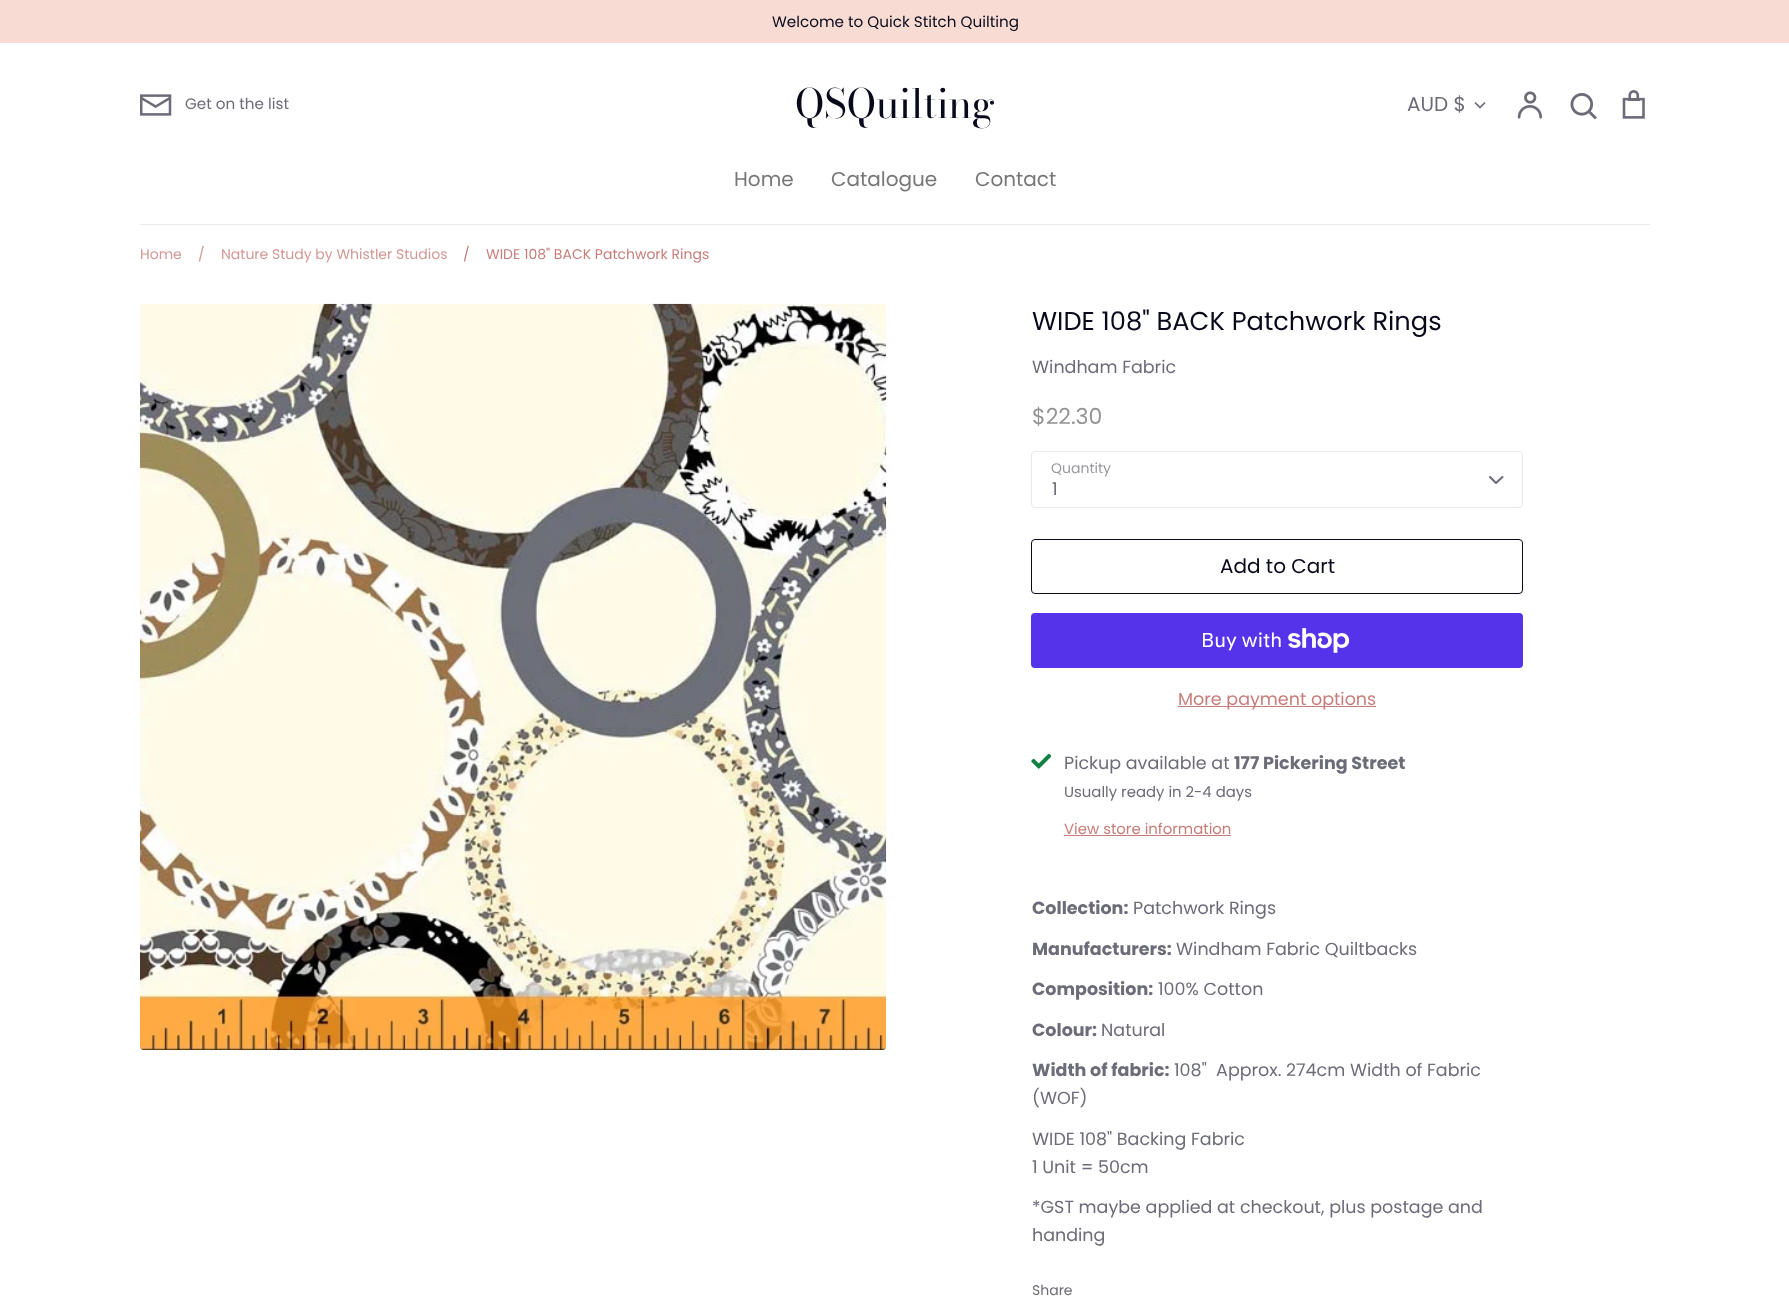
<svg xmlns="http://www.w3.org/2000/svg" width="1789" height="1314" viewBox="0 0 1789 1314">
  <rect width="100%" height="100%" fill="#ffffff"/>
  <rect x="0" y="0" width="1789" height="43" fill="#f8dbd3"/>
  <text x="772" y="27" font-family="Poppins" font-size="15.2" fill="#080a1c">Welcome to Quick Stitch Quilting</text>
  <image x="140" y="94" width="32" height="22" href="img1.png"/>
  <text x="185" y="109" font-family="Poppins" font-size="15.2" fill="#6b6c77">Get on the list</text>
  <text x="795" y="118" font-family="Bodoni Moda" font-size="40" fill="#080a1c">QSQuilting</text>
  <text x="1407" y="111" font-family="Poppins" font-size="20" fill="#6b6c77">AUD $</text>
  <path d="M1475 102.5L1480 107.5L1485 102.5" fill="none" stroke="#6b6c77" stroke-width="1.7"/>
  <image x="1517" y="91" width="26" height="28" href="img2.png"/>
  <image x="1570" y="93" width="27" height="27" href="img3.png"/>
  <image x="1622" y="90" width="23" height="29" href="img4.png"/>
  <rect x="140" y="224" width="1510" height="1" fill="#e9e9eb"/>
  <text x="734" y="186" font-family="Poppins" font-size="20" fill="#777777">Home</text>
  <text x="831" y="186" font-family="Poppins" font-size="20" fill="#777777">Catalogue</text>
  <text x="975" y="186" font-family="Poppins" font-size="20" fill="#777777">Contact</text>
  <text x="140" y="259" font-family="Poppins" font-size="14" fill="#d29895">Home</text>
  <text x="198" y="259" font-family="Poppins" font-size="14" fill="#d29895">/</text>
  <text x="221" y="259" font-family="Poppins" font-size="14" fill="#d29895">Nature Study by Whistler Studios</text>
  <text x="463" y="259" font-family="Poppins" font-size="14" fill="#c77e7a">/</text>
  <text x="486" y="259" font-family="Poppins" font-size="14" fill="#c77e7a">WIDE 108" BACK Patchwork Rings</text>
  <image x="140" y="303" width="747" height="747" href="img5.png"/>
  <text x="1032" y="330" font-family="Poppins" font-size="25.7" fill="#080a1c">WIDE 108" BACK Patchwork Rings</text>
  <text x="1032" y="373" font-family="Poppins" font-size="17.5" fill="#6b6c77">Windham Fabric</text>
  <text x="1032" y="424" font-family="Poppins" font-size="22" fill="#939393">$22.30</text>
  <text x="1051" y="473" font-family="Poppins" font-size="14" fill="#9798a0">Quantity</text>
  <rect x="1031.5" y="451.5" width="491" height="56" rx="3.5" fill="none" stroke="#e9e9eb"/>
  <path d="M1490 477L1496 483L1502.5 477" fill="none" stroke="#6b6c77" stroke-width="2.1" stroke-linecap="round" stroke-linejoin="round"/>
  <text x="1052" y="495" font-family="Poppins" font-size="17.5" fill="#6b6c77">1</text>
  <rect x="1031.5" y="539.5" width="491" height="54" rx="3.5" fill="none" stroke="#080a1c"/>
  <text x="1220" y="573" font-family="Poppins" font-size="20" fill="#080a1c">Add to Cart</text>
  <rect x="1031" y="613" width="492" height="55" rx="4" fill="#5433eb"/>
  <text x="1201" y="647" font-family="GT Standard" font-size="20" fill="#ffffff">Buy with</text>
  <image x="1288" y="628" width="62" height="25" href="img6.png"/>
  <rect x="1178" y="706" width="198" height="1" fill="#c77e7a"/>
  <text x="1178" y="705" font-family="Poppins" font-size="17.5" fill="#c77e7a">More payment options</text>
  <image x="1031" y="753" width="20" height="16" href="img7.png"/>
  <text x="1064" y="769" font-family="Poppins" font-size="17.5" fill="#6b6c77">Pickup available at</text>
  <text x="1234" y="769" font-family="Poppins" font-size="17.5" font-weight="bold" fill="#6b6c77">177 Pickering Street</text>
  <text x="1064" y="797" font-family="Poppins" font-size="14.9" fill="#6b6c77">Usually ready in 2-4 days</text>
  <text x="1064" y="834" font-family="Poppins" font-size="14.9" fill="#c77e7a">View store information</text>
  <rect x="1064" y="835" width="167" height="1" fill="#c77e7a"/>
  <text x="1032" y="914" font-family="Poppins" font-size="17.5" font-weight="bold" fill="#6b6c77">Collection:</text>
  <text x="1133" y="914" font-family="Poppins" font-size="17.5" fill="#6b6c77">Patchwork Rings</text>
  <text x="1032" y="955" font-family="Poppins" font-size="17.5" font-weight="bold" fill="#6b6c77">Manufacturers:</text>
  <text x="1176" y="955" font-family="Poppins" font-size="17.5" fill="#6b6c77">Windham Fabric Quiltbacks</text>
  <text x="1032" y="995" font-family="Poppins" font-size="17.5" font-weight="bold" fill="#6b6c77">Composition:</text>
  <text x="1158" y="995" font-family="Poppins" font-size="17.5" fill="#6b6c77">100% Cotton</text>
  <text x="1032" y="1036" font-family="Poppins" font-size="17.5" font-weight="bold" fill="#6b6c77">Colour:</text>
  <text x="1101" y="1036" font-family="Poppins" font-size="17.5" fill="#6b6c77">Natural</text>
  <text x="1032" y="1076" font-family="Poppins" font-size="17.5" font-weight="bold" fill="#6b6c77">Width of fabric:</text>
  <text x="1174" y="1076" font-family="Poppins" font-size="17.5" fill="#6b6c77" xml:space="preserve">108"  Approx. 274cm Width of Fabric</text>
  <text x="1032" y="1104" font-family="Poppins" font-size="17.5" fill="#6b6c77">(WOF)</text>
  <text x="1032" y="1145" font-family="Poppins" font-size="17.5" fill="#6b6c77">WIDE 108" Backing Fabric</text>
  <text x="1032" y="1173" font-family="Poppins" font-size="17.5" fill="#6b6c77">1 Unit = 50cm</text>
  <text x="1032" y="1213" font-family="Poppins" font-size="17.5" fill="#6b6c77">*GST maybe applied at checkout, plus postage and</text>
  <text x="1032" y="1241" font-family="Poppins" font-size="17.5" fill="#6b6c77">handing</text>
  <text x="1032" y="1295" font-family="Poppins" font-size="14" fill="#6b6c77">Share</text>
</svg>
